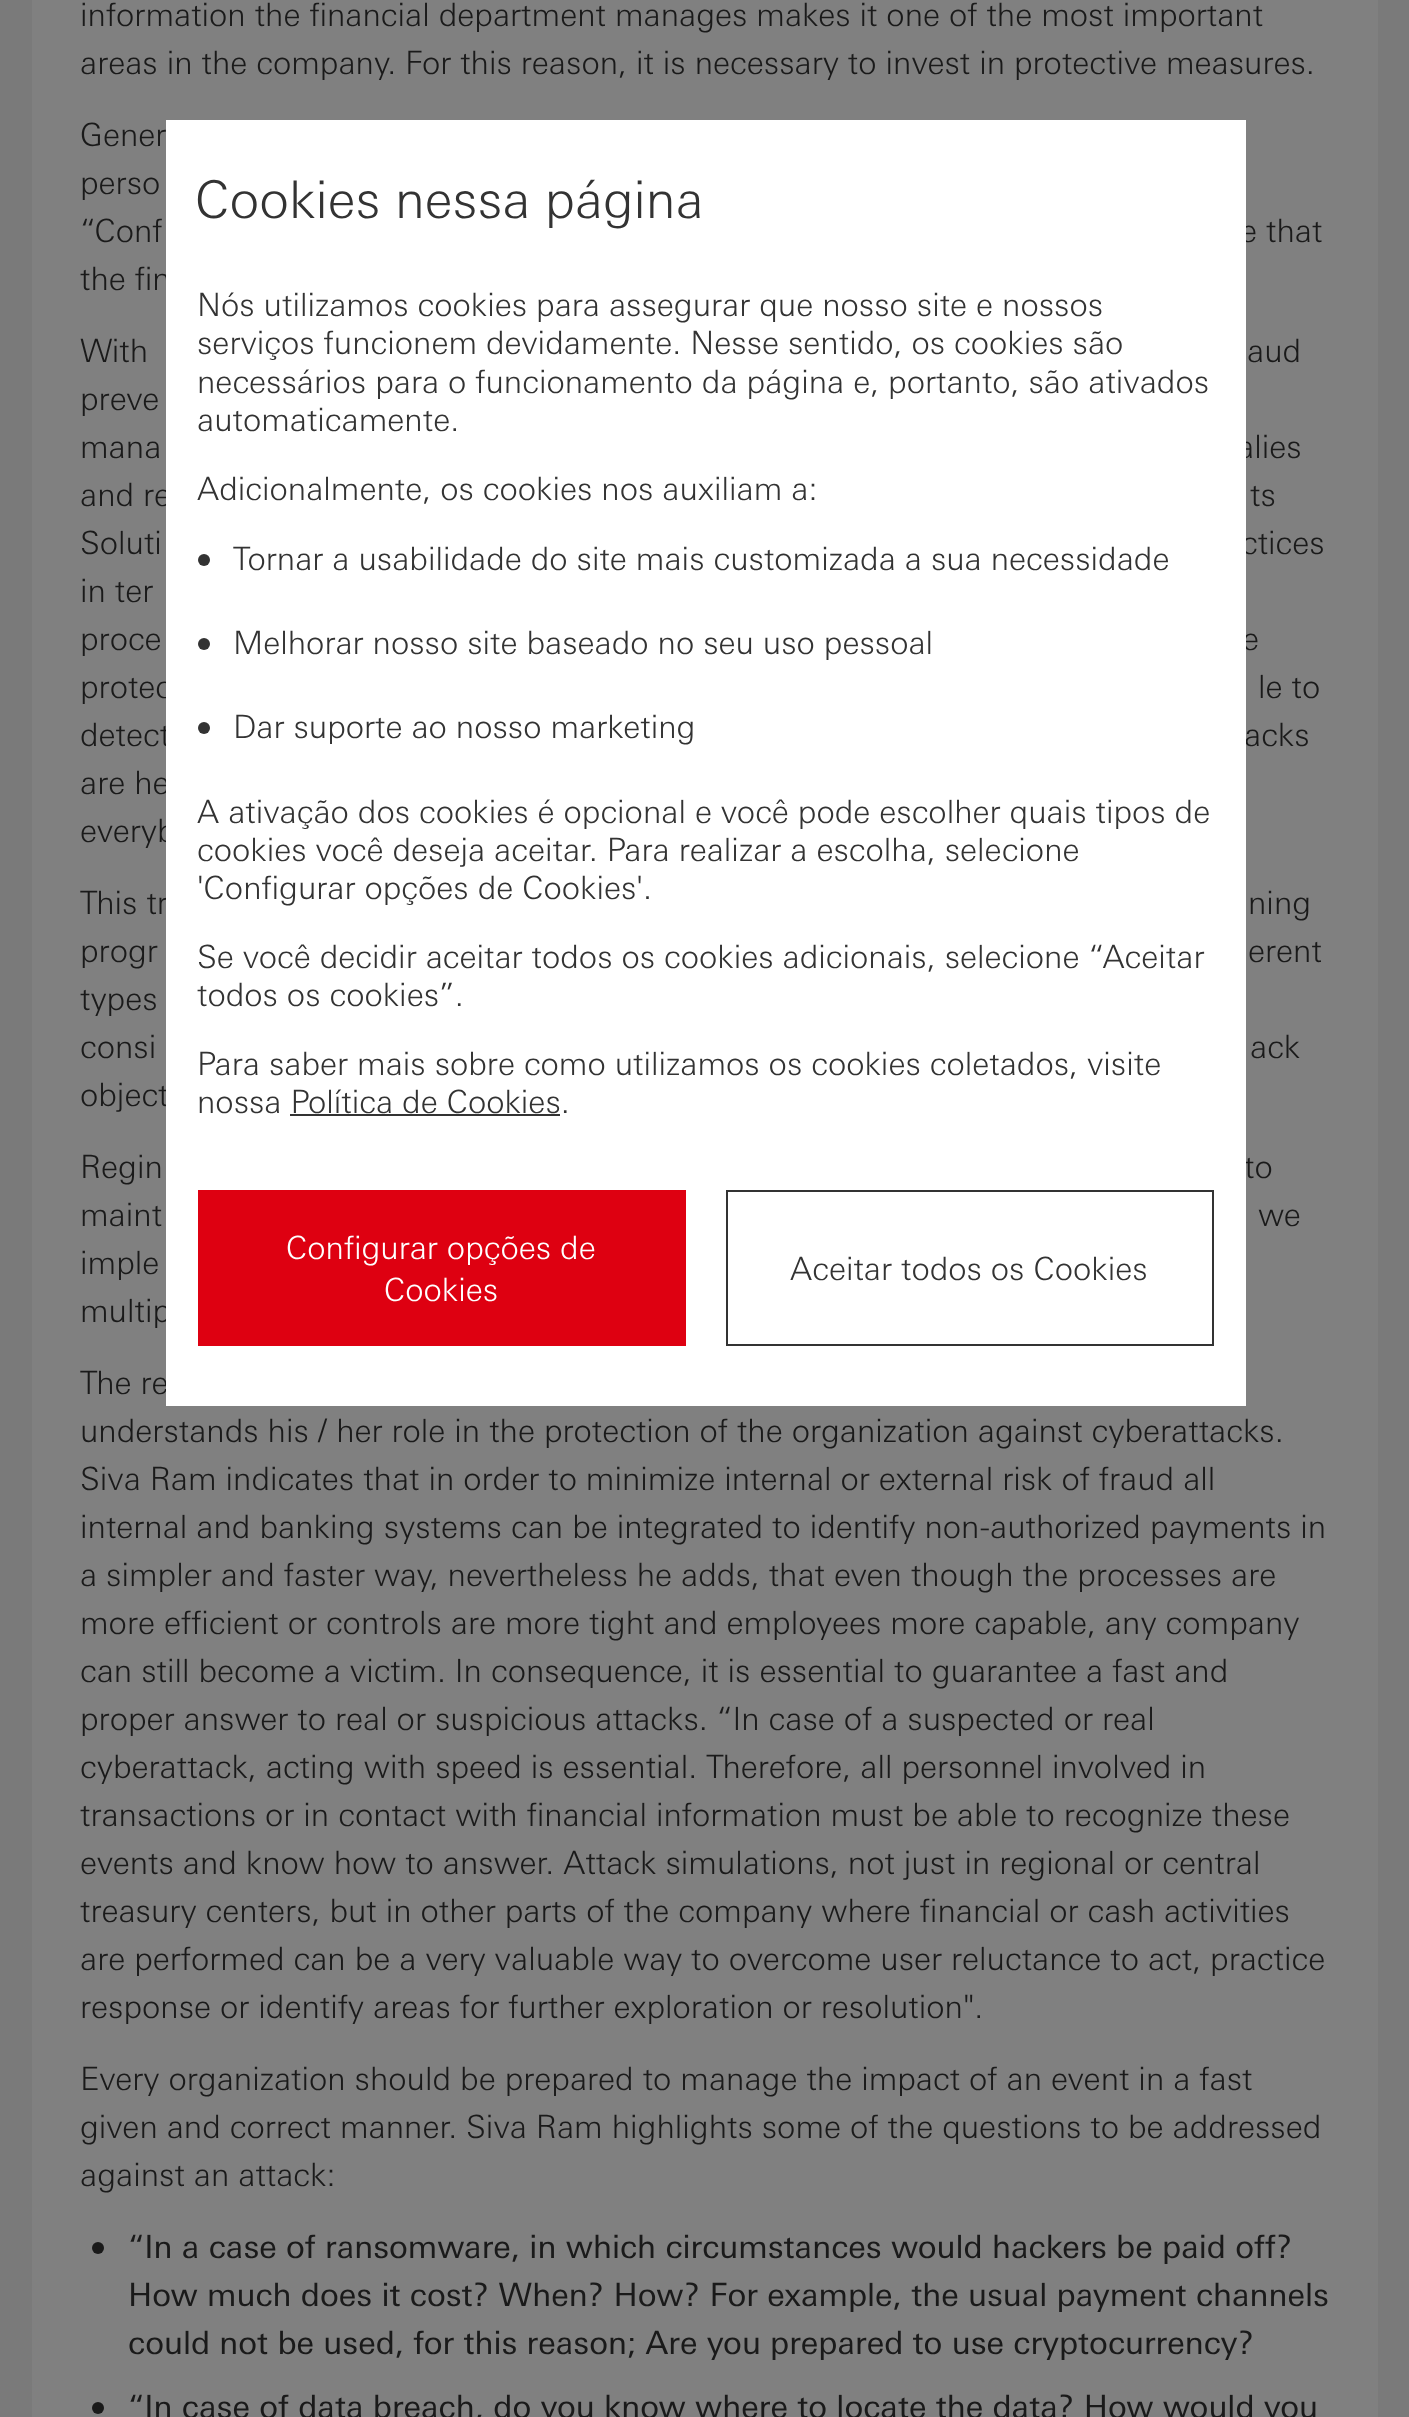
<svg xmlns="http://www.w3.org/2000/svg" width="1409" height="2417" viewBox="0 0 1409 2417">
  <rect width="100%" height="100%" fill="#7a7a7a"/>
  <rect x="32" y="0" width="1346" height="2417" fill="#808080"/>
  <text x="80" y="26" font-family="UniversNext" font-size="32" font-weight="300" fill="#1a1a1a">information the financial department manages makes it one of the most important</text>
  <text x="80" y="74" font-family="UniversNext" font-size="32" font-weight="300" fill="#1a1a1a">areas in the company. For this reason, it is necessary to invest in protective measures.</text>
  <text x="80" y="146" font-family="UniversNext" font-size="32" font-weight="300" fill="#1a1a1a">Gener</text>
  <text x="80" y="194" font-family="UniversNext" font-size="32" font-weight="300" fill="#1a1a1a">perso</text>
  <text x="80" y="242" font-family="UniversNext" font-size="32" font-weight="300" fill="#1a1a1a">“Conf</text>
  <text x="1240" y="242" font-family="UniversNext" font-size="32" font-weight="300" fill="#1a1a1a">e that</text>
  <text x="80" y="290" font-family="UniversNext" font-size="32" font-weight="300" fill="#1a1a1a">the fin</text>
  <text x="80" y="362" font-family="UniversNext" font-size="32" font-weight="300" fill="#1a1a1a">With</text>
  <text x="1247" y="362" font-family="UniversNext" font-size="32" font-weight="300" fill="#1a1a1a">aud</text>
  <text x="80" y="410" font-family="UniversNext" font-size="32" font-weight="300" fill="#1a1a1a">preve</text>
  <text x="80" y="458" font-family="UniversNext" font-size="32" font-weight="300" fill="#1a1a1a">mana</text>
  <text x="1237" y="458" font-family="UniversNext" font-size="32" font-weight="300" fill="#1a1a1a">alies</text>
  <text x="80" y="506" font-family="UniversNext" font-size="32" font-weight="300" fill="#1a1a1a">and re</text>
  <text x="1250" y="506" font-family="UniversNext" font-size="32" font-weight="300" fill="#1a1a1a">ts</text>
  <text x="80" y="554" font-family="UniversNext" font-size="32" font-weight="300" fill="#1a1a1a">Soluti</text>
  <text x="1241" y="554" font-family="UniversNext" font-size="32" font-weight="300" fill="#1a1a1a">ctices</text>
  <text x="80" y="602" font-family="UniversNext" font-size="32" font-weight="300" fill="#1a1a1a">in ter</text>
  <text x="80" y="650" font-family="UniversNext" font-size="32" font-weight="300" fill="#1a1a1a">proce</text>
  <text x="1242" y="650" font-family="UniversNext" font-size="32" font-weight="300" fill="#1a1a1a">e</text>
  <text x="80" y="698" font-family="UniversNext" font-size="32" font-weight="300" fill="#1a1a1a">protec</text>
  <text x="1258" y="698" font-family="UniversNext" font-size="32" font-weight="300" fill="#1a1a1a">le to</text>
  <text x="80" y="746" font-family="UniversNext" font-size="32" font-weight="300" fill="#1a1a1a">detect</text>
  <text x="1244" y="746" font-family="UniversNext" font-size="32" font-weight="300" fill="#1a1a1a">acks</text>
  <text x="80" y="794" font-family="UniversNext" font-size="32" font-weight="300" fill="#1a1a1a">are he</text>
  <text x="80" y="842" font-family="UniversNext" font-size="32" font-weight="300" fill="#1a1a1a">everyb</text>
  <text x="80" y="914" font-family="UniversNext" font-size="32" font-weight="300" fill="#1a1a1a">This tr</text>
  <text x="1248" y="914" font-family="UniversNext" font-size="32" font-weight="300" fill="#1a1a1a">ning</text>
  <text x="80" y="962" font-family="UniversNext" font-size="32" font-weight="300" fill="#1a1a1a">progr</text>
  <text x="1248" y="962" font-family="UniversNext" font-size="32" font-weight="300" fill="#1a1a1a">erent</text>
  <text x="80" y="1010" font-family="UniversNext" font-size="32" font-weight="300" fill="#1a1a1a">types</text>
  <text x="80" y="1058" font-family="UniversNext" font-size="32" font-weight="300" fill="#1a1a1a">consi</text>
  <text x="1250" y="1058" font-family="UniversNext" font-size="32" font-weight="300" fill="#1a1a1a">ack</text>
  <text x="80" y="1106" font-family="UniversNext" font-size="32" font-weight="300" fill="#1a1a1a">object</text>
  <text x="80" y="1178" font-family="UniversNext" font-size="32" font-weight="300" fill="#1a1a1a">Regin</text>
  <text x="1244" y="1178" font-family="UniversNext" font-size="32" font-weight="300" fill="#1a1a1a">to</text>
  <text x="80" y="1226" font-family="UniversNext" font-size="32" font-weight="300" fill="#1a1a1a">maint</text>
  <text x="1258" y="1226" font-family="UniversNext" font-size="32" font-weight="300" fill="#1a1a1a">we</text>
  <text x="80" y="1274" font-family="UniversNext" font-size="32" font-weight="300" fill="#1a1a1a">imple</text>
  <text x="80" y="1322" font-family="UniversNext" font-size="32" font-weight="300" fill="#1a1a1a">multip</text>
  <text x="80" y="1394" font-family="UniversNext" font-size="32" font-weight="300" fill="#1a1a1a">The re</text>
  <text x="80" y="1442" font-family="UniversNext" font-size="32" font-weight="300" fill="#1a1a1a">understands his / her role in the protection of the organization against cyberattacks.</text>
  <text x="80" y="1490" font-family="UniversNext" font-size="32" font-weight="300" fill="#1a1a1a">Siva Ram indicates that in order to minimize internal or external risk of fraud all</text>
  <text x="80" y="1538" font-family="UniversNext" font-size="32" font-weight="300" fill="#1a1a1a">internal and banking systems can be integrated to identify non-authorized payments in</text>
  <text x="80" y="1586" font-family="UniversNext" font-size="32" font-weight="300" fill="#1a1a1a">a simpler and faster way, nevertheless he adds, that even though the processes are</text>
  <text x="80" y="1634" font-family="UniversNext" font-size="32" font-weight="300" fill="#1a1a1a">more efficient or controls are more tight and employees more capable, any company</text>
  <text x="80" y="1682" font-family="UniversNext" font-size="32" font-weight="300" fill="#1a1a1a">can still become a victim. In consequence, it is essential to guarantee a fast and</text>
  <text x="80" y="1730" font-family="UniversNext" font-size="32" font-weight="300" fill="#1a1a1a">proper answer to real or suspicious attacks. “In case of a suspected or real</text>
  <text x="80" y="1778" font-family="UniversNext" font-size="32" font-weight="300" fill="#1a1a1a">cyberattack, acting with speed is essential. Therefore, all personnel involved in</text>
  <text x="80" y="1826" font-family="UniversNext" font-size="32" font-weight="300" fill="#1a1a1a">transactions or in contact with financial information must be able to recognize these</text>
  <text x="80" y="1874" font-family="UniversNext" font-size="32" font-weight="300" fill="#1a1a1a">events and know how to answer. Attack simulations, not just in regional or central</text>
  <text x="80" y="1922" font-family="UniversNext" font-size="32" font-weight="300" fill="#1a1a1a">treasury centers, but in other parts of the company where financial or cash activities</text>
  <text x="80" y="1970" font-family="UniversNext" font-size="32" font-weight="300" fill="#1a1a1a">are performed can be a very valuable way to overcome user reluctance to act, practice</text>
  <text x="80" y="2018" font-family="UniversNext" font-size="32" font-weight="300" fill="#1a1a1a">response or identify areas for further exploration or resolution".</text>
  <text x="80" y="2090" font-family="UniversNext" font-size="32" font-weight="300" fill="#1a1a1a">Every organization should be prepared to manage the impact of an event in a fast</text>
  <text x="80" y="2138" font-family="UniversNext" font-size="32" font-weight="300" fill="#1a1a1a">given and correct manner. Siva Ram highlights some of the questions to be addressed</text>
  <text x="80" y="2186" font-family="UniversNext" font-size="32" font-weight="300" fill="#1a1a1a">against an attack:</text>
  <circle cx="98" cy="2248" r="6" fill="#1a1a1a"/>
  <text x="128" y="2258" font-family="UniversNext" font-size="32" fill="#1a1a1a">“In a case of ransomware, in which circumstances would hackers be paid off?</text>
  <text x="128" y="2306" font-family="UniversNext" font-size="32" fill="#1a1a1a">How much does it cost? When? How? For example, the usual payment channels</text>
  <text x="128" y="2354" font-family="UniversNext" font-size="32" fill="#1a1a1a">could not be used, for this reason; Are you prepared to use cryptocurrency?</text>
  <circle cx="98" cy="2408" r="6" fill="#1a1a1a"/>
  <text x="128" y="2418" font-family="UniversNext" font-size="32" fill="#1a1a1a">“In case of data breach, do you know where to locate the data? How would you</text>
  <rect x="166" y="120" width="1080" height="1286" fill="#ffffff"/>
  <text x="195" y="218" font-family="UniversNext" font-size="52" font-weight="300" fill="#333333">Cookies nessa página</text>
  <text x="197" y="316" font-family="UniversNext" font-size="32" font-weight="300" fill="#333333">Nós utilizamos cookies para assegurar que nosso site e nossos</text>
  <text x="197" y="354" font-family="UniversNext" font-size="32" font-weight="300" fill="#333333">serviços funcionem devidamente. Nesse sentido, os cookies são</text>
  <text x="197" y="393" font-family="UniversNext" font-size="32" font-weight="300" fill="#333333">necessários para o funcionamento da página e, portanto, são ativados</text>
  <text x="197" y="431" font-family="UniversNext" font-size="32" font-weight="300" fill="#333333">automaticamente.</text>
  <text x="197" y="500" font-family="UniversNext" font-size="32" font-weight="300" fill="#333333">Adicionalmente, os cookies nos auxiliam a:</text>
  <circle cx="204" cy="560" r="6" fill="#333333"/>
  <text x="233" y="570" font-family="UniversNext" font-size="32" font-weight="300" fill="#333333">Tornar a usabilidade do site mais customizada a sua necessidade</text>
  <circle cx="204" cy="644" r="6" fill="#333333"/>
  <text x="233" y="654" font-family="UniversNext" font-size="32" font-weight="300" fill="#333333">Melhorar nosso site baseado no seu uso pessoal</text>
  <circle cx="204" cy="728" r="6" fill="#333333"/>
  <text x="233" y="738" font-family="UniversNext" font-size="32" font-weight="300" fill="#333333">Dar suporte ao nosso marketing</text>
  <text x="197" y="823" font-family="UniversNext" font-size="32" font-weight="300" fill="#333333">A ativação dos cookies é opcional e você pode escolher quais tipos de</text>
  <text x="197" y="861" font-family="UniversNext" font-size="32" font-weight="300" fill="#333333">cookies você deseja aceitar. Para realizar a escolha, selecione</text>
  <text x="197" y="899" font-family="UniversNext" font-size="32" font-weight="300" fill="#333333">'Configurar opções de Cookies'.</text>
  <text x="197" y="968" font-family="UniversNext" font-size="32" font-weight="300" fill="#333333">Se você decidir aceitar todos os cookies adicionais, selecione “Aceitar</text>
  <text x="197" y="1006" font-family="UniversNext" font-size="32" font-weight="300" fill="#333333">todos os cookies”.</text>
  <text x="197" y="1075" font-family="UniversNext" font-size="32" font-weight="300" fill="#333333">Para saber mais sobre como utilizamos os cookies coletados, visite</text>
  <text x="197" y="1113" font-family="UniversNext" font-size="32" font-weight="300" fill="#333333">nossa Política de Cookies.</text>
  <rect x="290" y="1114" width="270" height="2" fill="#333333"/>
  <rect x="198" y="1190" width="488" height="156" fill="#de0011"/>
  <text x="286" y="1259" font-family="UniversNext" font-size="32" font-weight="300" fill="#ffffff">Configurar opções de</text>
  <text x="384" y="1301" font-family="UniversNext" font-size="32" font-weight="300" fill="#ffffff">Cookies</text>
  <rect x="727" y="1191" width="486" height="154" fill="none" stroke="#333333" stroke-width="2"/>
  <text x="790" y="1280" font-family="UniversNext" font-size="32" font-weight="300" fill="#333333">Aceitar todos os Cookies</text>
</svg>
